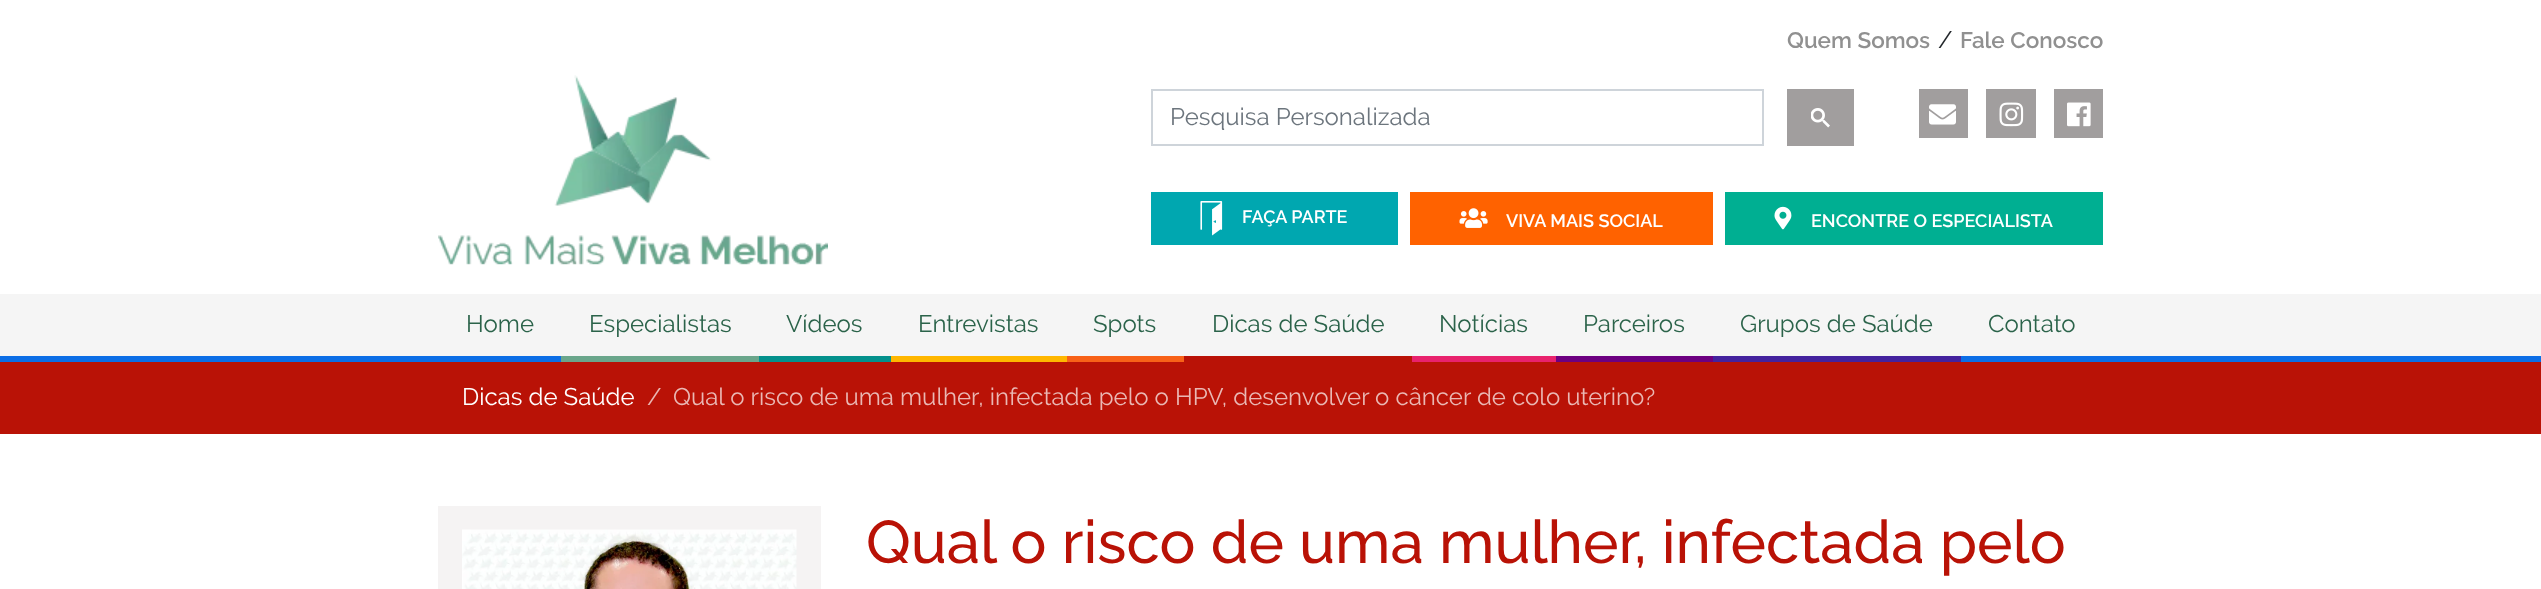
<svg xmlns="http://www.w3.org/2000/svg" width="2541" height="589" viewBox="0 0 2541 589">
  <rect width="100%" height="100%" fill="#ffffff"/>
  <text x="1787" y="48" font-family="Raleway" font-size="22.5" font-weight="600" fill="#909090">Quem Somos</text>
  <text x="1938" y="48" font-family="Raleway" font-size="24" fill="#212529">/</text>
  <text x="1960" y="48" font-family="Raleway" font-size="22.5" font-weight="600" fill="#909090">Fale Conosco</text>
  <image x="438" y="75" width="390" height="190" href="img1.png"/>
  <rect x="1152" y="90" width="611" height="55" fill="none" stroke="#ced4da" stroke-width="2"/>
  <text x="1170" y="125" font-family="Raleway" font-size="24" fill="#6c757d">Pesquisa Personalizada</text>
  <rect x="1787" y="89" width="67" height="57" fill="#a19e9e"/>
  <image x="1811" y="108" width="19" height="20" href="img2.png"/>
  <rect x="1919" y="89" width="49" height="49" fill="#a19e9e"/>
  <image x="1929" y="104" width="27" height="21" href="img3.png"/>
  <rect x="1986" y="89" width="50" height="49" fill="#a19e9e"/>
  <image x="1999" y="102" width="25" height="25" href="img4.png"/>
  <rect x="2054" y="89" width="49" height="49" fill="#a19e9e"/>
  <image x="2067" y="102" width="24" height="25" href="img5.png"/>
  <rect x="1151" y="192" width="247" height="53" fill="#00a7b0"/>
  <image x="1200" y="201" width="23" height="35" href="img6.png"/>
  <text x="1242" y="223" font-family="Raleway" font-size="18" font-weight="600" fill="#ffffff">FAÇA PARTE</text>
  <rect x="1410" y="192" width="303" height="53" fill="#ff6200"/>
  <image x="1459" y="208" width="29" height="20" href="img7.png"/>
  <text x="1506" y="227" font-family="Raleway" font-size="18" font-weight="600" fill="#ffffff">VIVA MAIS SOCIAL</text>
  <rect x="1725" y="192" width="378" height="53" fill="#00af92"/>
  <image x="1774" y="206" width="18" height="24" href="img8.png"/>
  <text x="1811" y="227" font-family="Raleway" font-size="18" font-weight="600" fill="#ffffff">ENCONTRE O ESPECIALISTA</text>
  <rect x="0" y="294" width="2541" height="62" fill="#f5f5f5"/>
  <rect x="0" y="356" width="2541" height="6" fill="#0b6ee6"/>
  <text x="466" y="332" font-family="Raleway" font-size="24" fill="#2b634a">Home</text>
  <rect x="561" y="356" width="198" height="6" fill="#6aa68b"/>
  <text x="589" y="332" font-family="Raleway" font-size="24" fill="#2b634a">Especialistas</text>
  <rect x="759" y="356" width="132" height="6" fill="#04918c"/>
  <text x="786" y="332" font-family="Raleway" font-size="24" fill="#2b634a">Vídeos</text>
  <rect x="891" y="356" width="176" height="6" fill="#ffb700"/>
  <text x="918" y="332" font-family="Raleway" font-size="24" fill="#2b634a">Entrevistas</text>
  <rect x="1067" y="356" width="117" height="6" fill="#f86218"/>
  <text x="1093" y="332" font-family="Raleway" font-size="24" fill="#2b634a">Spots</text>
  <rect x="1184" y="356" width="228" height="6" fill="#b91206"/>
  <text x="1212" y="332" font-family="Raleway" font-size="24" fill="#2b634a">Dicas de Saúde</text>
  <rect x="1412" y="356" width="144" height="6" fill="#e8226d"/>
  <text x="1439" y="332" font-family="Raleway" font-size="24" fill="#2b634a">Notícias</text>
  <rect x="1556" y="356" width="157" height="6" fill="#6d0081"/>
  <text x="1583" y="332" font-family="Raleway" font-size="24" fill="#2b634a">Parceiros</text>
  <rect x="1713" y="356" width="248" height="6" fill="#44229e"/>
  <text x="1740" y="332" font-family="Raleway" font-size="24" fill="#2b634a">Grupos de Saúde</text>
  <text x="1988" y="332" font-family="Raleway" font-size="24" fill="#2b634a">Contato</text>
  <rect x="0" y="362" width="2541" height="72" fill="#b91206"/>
  <text x="462" y="405" font-family="Raleway" font-size="24" fill="#ffffff">Dicas de Saúde</text>
  <text x="647" y="405" font-family="Raleway" font-size="24" fill="#eab8b4">/</text>
  <text x="673" y="405" font-family="Raleway" font-size="24" fill="#eab8b4">Qual o risco de uma mulher, infectada pelo o HPV, desenvolver o câncer de colo uterino?</text>
  <rect x="438" y="506" width="383" height="83" fill="#f5f3f3"/>
  <image x="462" y="529" width="335" height="60" href="img9.png"/>
  <text x="866" y="563" font-family="Raleway" font-size="60" font-weight="500" fill="#b91206">Qual o risco de uma mulher, infectada pelo</text>
</svg>
